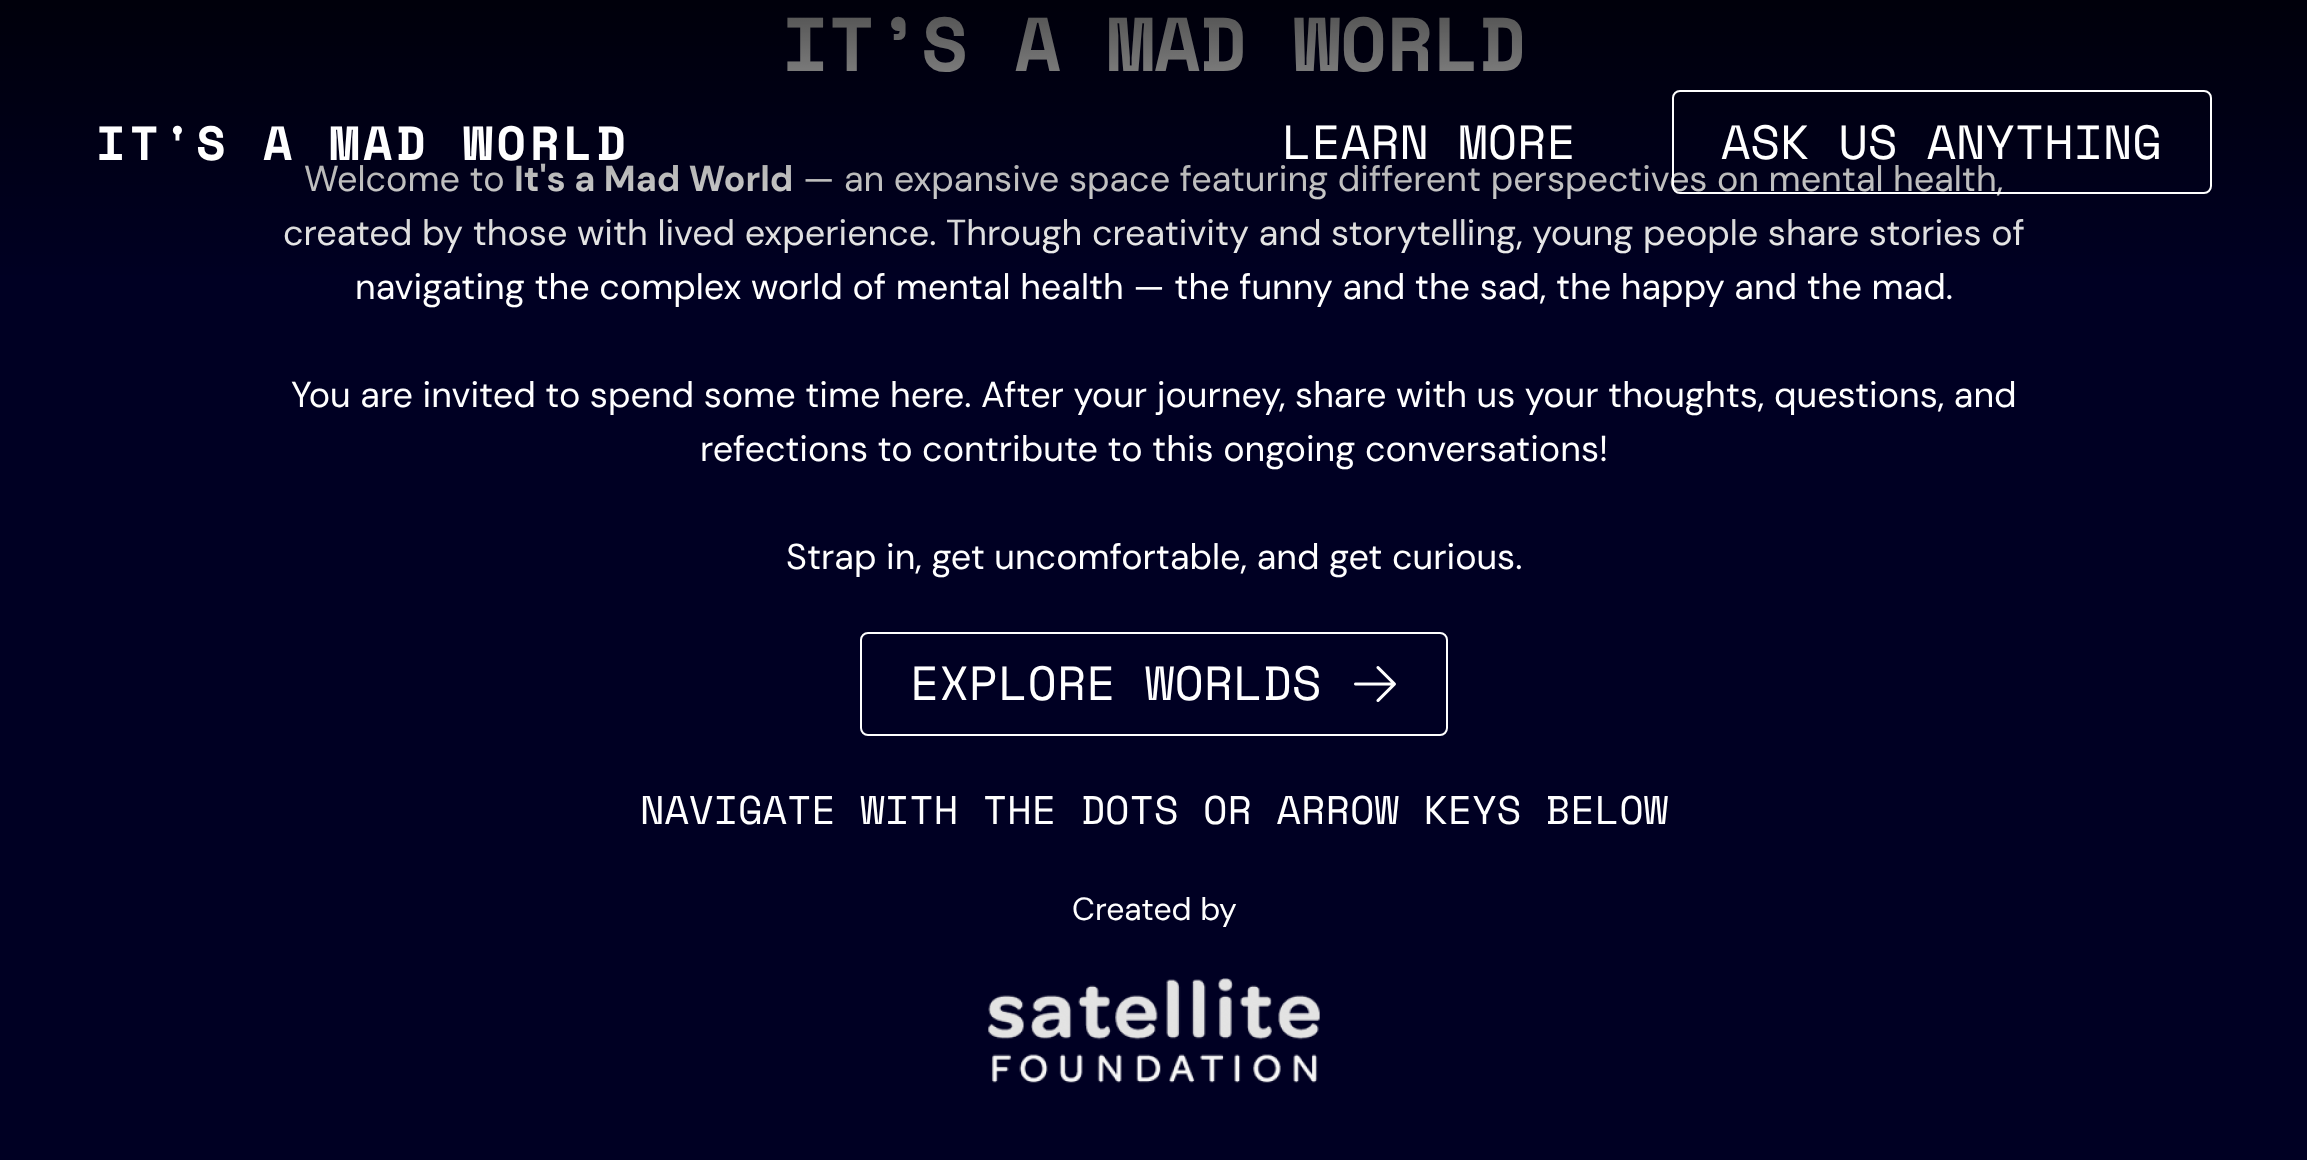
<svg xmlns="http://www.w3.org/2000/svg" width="2307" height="1160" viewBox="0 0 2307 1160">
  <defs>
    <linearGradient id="g1" gradientUnits="userSpaceOnUse" x1="1154" y1="0" x2="1154" y2="284"><stop offset="0" stop-color="#000000" stop-opacity="0.7"/><stop offset="1" stop-color="#000000" stop-opacity="0"/></linearGradient>
  </defs>
  <rect width="100%" height="100%" fill="#000023"/>
  <text x="782" y="71" font-family="Space Mono" font-size="76" font-weight="bold" fill="#ffffff">IT’S A MAD WORLD</text>
  <text x="304" y="191" font-family="DM Sans" font-size="36" fill="#ffffff">Welcome to</text>
  <text x="514" y="191" font-family="DM Sans" font-size="36" font-weight="bold" fill="#ffffff">It's a Mad World</text>
  <text x="803" y="191" font-family="DM Sans" font-size="36" fill="#ffffff">— an expansive space featuring different perspectives on mental health,</text>
  <text x="283" y="245" font-family="DM Sans" font-size="36" fill="#ffffff">created by those with lived experience. Through creativity and storytelling, young people share stories of</text>
  <text x="355" y="299" font-family="DM Sans" font-size="36" fill="#ffffff">navigating the complex world of mental health — the funny and the sad, the happy and the mad.</text>
  <text x="291" y="407" font-family="DM Sans" font-size="36" fill="#ffffff">You are invited to spend some time here. After your journey, share with us your thoughts, questions, and</text>
  <text x="700" y="461" font-family="DM Sans" font-size="36" fill="#ffffff">refections to contribute to this ongoing conversations!</text>
  <text x="786" y="569" font-family="DM Sans" font-size="36" fill="#ffffff">Strap in, get uncomfortable, and get curious.</text>
  <rect x="861" y="633" width="586" height="102" rx="7" fill="none" stroke="#ffffff" stroke-width="2"/>
  <text x="910" y="700" font-family="Space Mono" font-size="48" fill="#ffffff">EXPLORE WORLDS</text>
  <image x="1354" y="666" width="42" height="36" href="img1.png"/>
  <text x="640" y="824" font-family="Space Mono" font-size="40" fill="#ffffff">NAVIGATE WITH THE DOTS OR ARROW KEYS BELOW</text>
  <text x="1072" y="920" font-family="DM Sans" font-size="32" fill="#ffffff">Created by</text>
  <image x="988" y="978" width="332" height="105" href="img2.png"/>
  <rect x="0" y="0" width="2307" height="275" fill="url(#g1)"/>
  <text x="96" y="160" font-family="Space Mono" font-size="48" font-weight="bold" letter-spacing="4" fill="#ffffff">IT'S A MAD WORLD</text>
  <text x="1282" y="159" font-family="Space Mono" font-size="48" fill="#ffffff">LEARN MORE</text>
  <rect x="1673" y="91" width="538" height="102" rx="7" fill="none" stroke="#ffffff" stroke-width="2"/>
  <text x="1721" y="159" font-family="Space Mono" font-size="48" fill="#ffffff">ASK US ANYTHING</text>
</svg>
